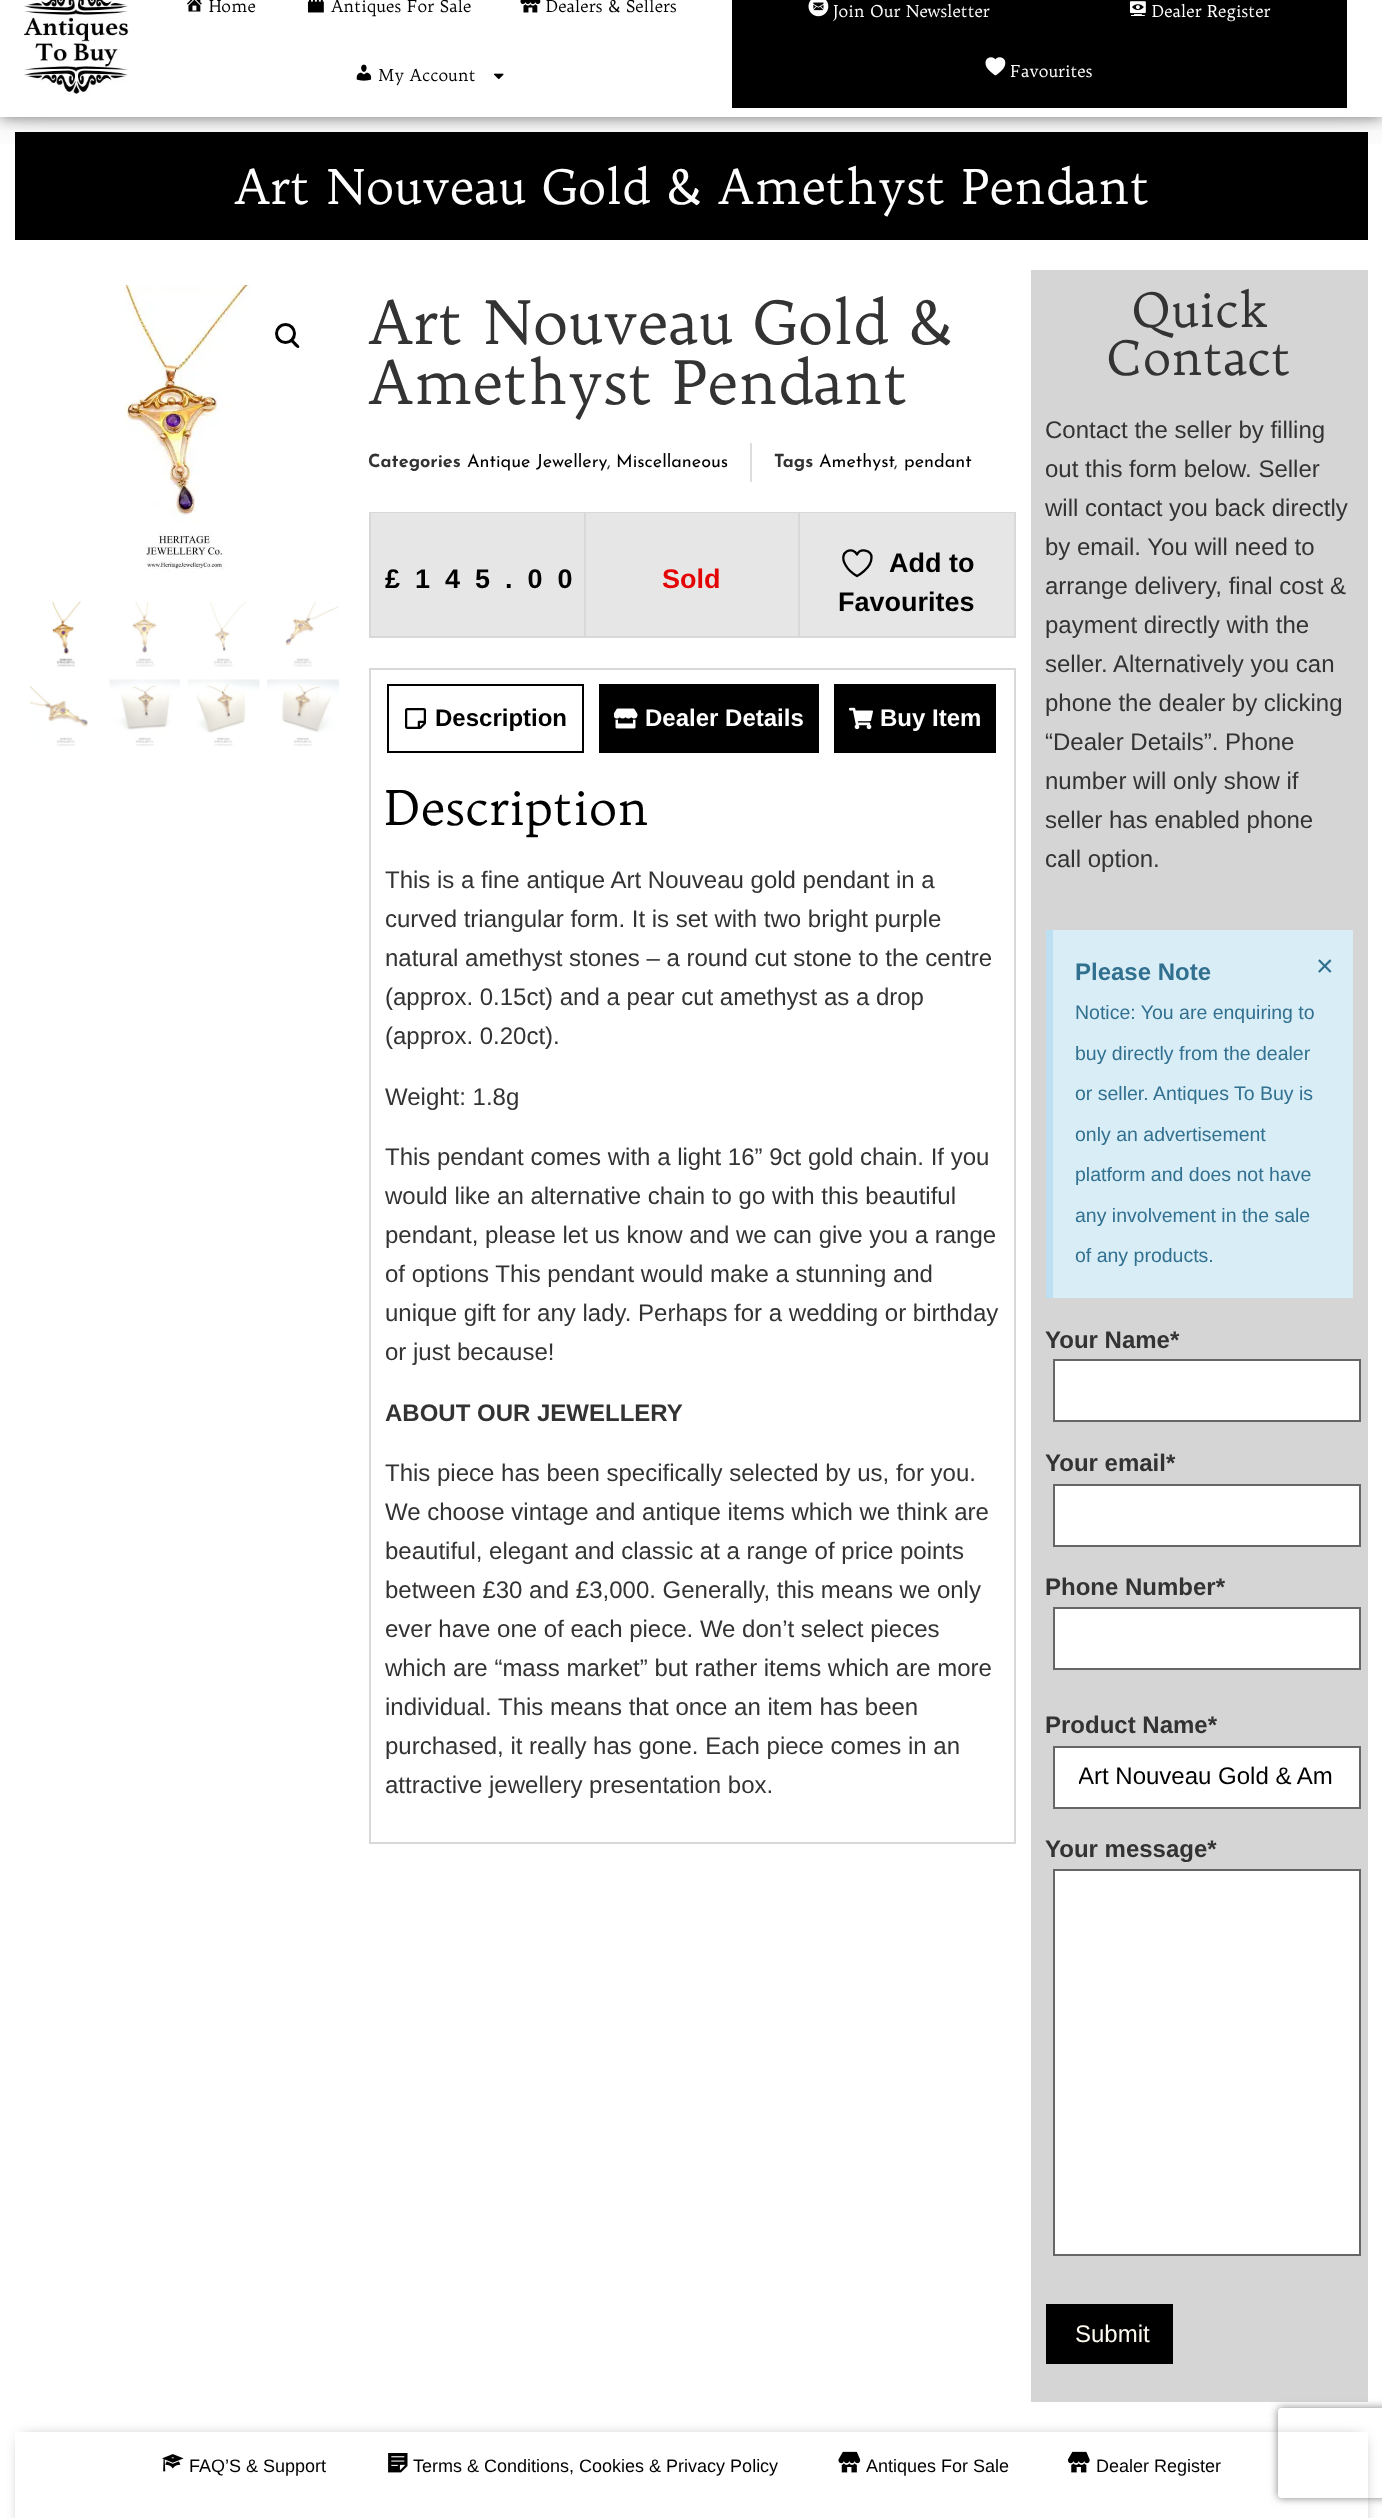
<svg xmlns="http://www.w3.org/2000/svg" width="1382" height="2518" viewBox="0 0 1382 2518">
  <defs>
    <clipPath id="clip1"><rect x="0" y="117" width="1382" height="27"/></clipPath>
    <filter id="blur1" x="-50%" y="-200%" width="200%" height="500%"><feGaussianBlur stdDeviation="22.5"/></filter>
    <clipPath id="clip2"><rect x="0" y="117" width="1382" height="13"/></clipPath>
    <filter id="blur2" x="-50%" y="-200%" width="200%" height="500%"><feGaussianBlur stdDeviation="7.5"/></filter>
    <clipPath id="clip3"><rect x="1079" y="1760" width="256" height="36"/></clipPath>
    <clipPath id="clip4"><path d="M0 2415H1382V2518H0ZM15 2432H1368V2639H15Z" clip-rule="evenodd"/></clipPath>
    <clipPath id="clip5"><path d="M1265 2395H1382V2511H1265ZM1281 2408H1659C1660.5 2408 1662 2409.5 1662 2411V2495C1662 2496.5 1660.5 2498 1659 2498H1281C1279.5 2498 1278 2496.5 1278 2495V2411C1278 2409.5 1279.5 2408 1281 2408Z" clip-rule="evenodd"/></clipPath>
    <filter id="blur3" x="-50%" y="-200%" width="200%" height="500%"><feGaussianBlur stdDeviation="4"/></filter>
  </defs>
  <rect width="100%" height="100%" fill="#ffffff"/>
  <rect x="15" y="132" width="1353" height="108" fill="#000000"/>
  <g clip-path="url(#clip1)">
    <rect x="0" y="-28" width="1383" height="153" fill="#000000" fill-opacity="0.1" filter="url(#blur1)"/>
  </g>
  <g clip-path="url(#clip2)">
    <rect x="0" y="-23" width="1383" height="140" fill="#000000" fill-opacity="0.5" filter="url(#blur2)"/>
  </g>
  <image x="24" y="0" width="105" height="94" href="img1.png"/>
  <image x="187" y="0" width="15" height="12" href="img2.png"/>
  <text x="209" y="12" font-family="Trykker" font-size="16.5" fill="#000000">Home</text>
  <image x="307" y="0" width="17" height="13" href="img3.png"/>
  <text x="331" y="12" font-family="Trykker" font-size="16.5" fill="#000000">Antiques For Sale</text>
  <image x="520" y="0" width="21" height="13" href="img4.png"/>
  <text x="546" y="12" font-family="Trykker" font-size="16.5" fill="#000000">Dealers &amp; Sellers</text>
  <image x="356" y="64" width="16" height="17" href="img5.png"/>
  <text x="378" y="81" font-family="Trykker" font-size="16.5" fill="#000000">My Account</text>
  <image x="494" y="73" width="10" height="7" href="img6.png"/>
  <rect x="732" y="0" width="615" height="108" fill="#000000"/>
  <image x="808" y="0" width="21" height="17" href="img7.png"/>
  <text x="833" y="17" font-family="Trykker" font-size="16.5" fill="#ffffff">Join Our Newsletter</text>
  <image x="1129" y="1" width="17" height="15" href="img8.png"/>
  <text x="1152" y="17" font-family="Trykker" font-size="16.5" fill="#ffffff">Dealer Register</text>
  <image x="985" y="57" width="21" height="19" href="img9.png"/>
  <text x="1010" y="77" font-family="Trykker" font-size="16.5" fill="#ffffff">Favourites</text>
  <text x="234" y="204" font-family="Trykker" font-size="48" fill="#ffffff">Art Nouveau Gold &amp; Amethyst Pendant</text>
  <image x="124" y="285" width="127" height="287" href="img10.png"/>
  <circle cx="285.5" cy="333.5" r="9" fill="none" stroke="#000000" stroke-width="3"/>
  <path d="M290.5 339.5C292 337.5 295 341.5 296 342.5C296.5 343.5 300.5 346 299 347.5C297.5 349.5 294.5 345.5 293.5 344.5C293 343.5 289 341 290.5 339.5Z" fill="#000000"/>
  <image x="52" y="601" width="29" height="66" href="img11.png"/>
  <image x="132" y="601" width="25" height="66" href="img12.png"/>
  <image x="209" y="601" width="38" height="66" href="img13.png"/>
  <image x="285" y="601" width="54" height="66" href="img14.png"/>
  <image x="30" y="685" width="58" height="61" href="img15.png"/>
  <image x="109" y="679" width="71" height="67" href="img16.png"/>
  <image x="187" y="679" width="73" height="67" href="img17.png"/>
  <image x="267" y="679" width="72" height="67" href="img18.png"/>
  <text x="368" y="344" font-family="Trykker" font-size="60" fill="#333333">Art Nouveau Gold &amp;</text>
  <text x="368" y="404" font-family="Trykker" font-size="60" fill="#333333">Amethyst Pendant</text>
  <text x="368" y="467" font-family="Josefin Sans" font-size="18" font-weight="bold" fill="#333333">Categories</text>
  <text x="467" y="467" font-family="Josefin Sans" font-size="18" fill="#000000">Antique Jewellery</text>
  <text x="607" y="467" font-family="Josefin Sans" font-size="18" fill="#333333">,</text>
  <text x="616" y="467" font-family="Josefin Sans" font-size="18" fill="#000000">Miscellaneous</text>
  <rect x="750" y="443" width="2" height="39" fill="#dddddd"/>
  <text x="774" y="467" font-family="Josefin Sans" font-size="18" font-weight="bold" fill="#333333">Tags</text>
  <text x="819" y="467" font-family="Josefin Sans" font-size="18" fill="#000000">Amethyst</text>
  <text x="894" y="467" font-family="Josefin Sans" font-size="18" fill="#333333">,</text>
  <text x="904" y="467" font-family="Josefin Sans" font-size="18" fill="#000000">pendant</text>
  <rect x="370" y="513" width="645" height="124" fill="none" stroke="#d8d8d8" stroke-width="2"/>
  <rect x="371" y="513" width="213" height="123" fill="#e6e6e6"/>
  <text x="385" y="588" font-family="Liberation Sans" font-size="27" font-weight="bold" letter-spacing="15" fill="#000000">£145.00</text>
  <rect x="586" y="513" width="212" height="123" fill="#e6e6e6"/>
  <rect x="798" y="513" width="2" height="123" fill="#d8d8d8"/>
  <rect x="584" y="513" width="2" height="123" fill="#d8d8d8"/>
  <text x="662" y="588" font-family="Liberation Sans" font-size="27" font-weight="bold" fill="#e50404">Sold</text>
  <rect x="800" y="513" width="214" height="123" fill="#e6e6e6"/>
  <path d="M871.5 557.5C871.5 549.5 860 548 857 554.5C853.5 546 837.5 551 845.5 565C848 569.5 852.5 573.5 857 576C857 576 871.5 568.5 871.5 557.5Z" fill="none" stroke="#000000" stroke-width="2.3" stroke-linecap="round" stroke-linejoin="round"/>
  <text x="889" y="572" font-family="Liberation Sans" font-size="27" font-weight="bold" fill="#000000">Add to</text>
  <text x="838" y="611" font-family="Liberation Sans" font-size="27" font-weight="bold" fill="#000000">Favourites</text>
  <rect x="370" y="669" width="645" height="1174" fill="none" stroke="#d8d8d8" stroke-width="2"/>
  <rect x="388" y="685" width="195" height="67" fill="none" stroke="#000000" stroke-width="2"/>
  <image x="405" y="708" width="21" height="21" href="img19.png"/>
  <text x="435" y="726" font-family="Liberation Sans" font-size="24" font-weight="bold" fill="#000000">Description</text>
  <rect x="599" y="684" width="220" height="69" fill="#000000"/>
  <image x="614" y="708" width="24" height="21" href="img20.png"/>
  <text x="645" y="726" font-family="Liberation Sans" font-size="24" font-weight="bold" fill="#ffffff">Dealer Details</text>
  <rect x="834" y="684" width="162" height="69" fill="#000000"/>
  <image x="849" y="707" width="24" height="23" href="img21.png"/>
  <text x="880" y="726" font-family="Liberation Sans" font-size="24" font-weight="bold" fill="#ffffff">Buy Item</text>
  <text x="385" y="825" font-family="Trykker" font-size="48" fill="#000000">Description</text>
  <text x="385" y="888" font-family="Liberation Sans" font-size="24" fill="#333333">This is a fine antique Art Nouveau gold pendant in a</text>
  <text x="385" y="927" font-family="Liberation Sans" font-size="24" fill="#333333">curved triangular form. It is set with two bright purple</text>
  <text x="385" y="966" font-family="Liberation Sans" font-size="24" fill="#333333">natural amethyst stones – a round cut stone to the centre</text>
  <text x="385" y="1005" font-family="Liberation Sans" font-size="24" fill="#333333">(approx. 0.15ct) and a pear cut amethyst as a drop</text>
  <text x="385" y="1044" font-family="Liberation Sans" font-size="24" fill="#333333">(approx. 0.20ct).</text>
  <text x="385" y="1105" font-family="Liberation Sans" font-size="24" fill="#333333">Weight: 1.8g</text>
  <text x="385" y="1165" font-family="Liberation Sans" font-size="24" fill="#333333">This pendant comes with a light 16” 9ct gold chain. If you</text>
  <text x="385" y="1204" font-family="Liberation Sans" font-size="24" fill="#333333">would like an alternative chain to go with this beautiful</text>
  <text x="385" y="1243" font-family="Liberation Sans" font-size="24" fill="#333333">pendant, please let us know and we can give you a range</text>
  <text x="385" y="1282" font-family="Liberation Sans" font-size="24" fill="#333333">of options This pendant would make a stunning and</text>
  <text x="385" y="1321" font-family="Liberation Sans" font-size="24" fill="#333333">unique gift for any lady. Perhaps for a wedding or birthday</text>
  <text x="385" y="1360" font-family="Liberation Sans" font-size="24" fill="#333333">or just because!</text>
  <text x="385" y="1421" font-family="Liberation Sans" font-size="24" font-weight="bold" fill="#333333">ABOUT OUR JEWELLERY</text>
  <text x="385" y="1481" font-family="Liberation Sans" font-size="24" fill="#333333">This piece has been specifically selected by us, for you.</text>
  <text x="385" y="1520" font-family="Liberation Sans" font-size="24" fill="#333333">We choose vintage and antique items which we think are</text>
  <text x="385" y="1559" font-family="Liberation Sans" font-size="24" fill="#333333">beautiful, elegant and classic at a range of price points</text>
  <text x="385" y="1598" font-family="Liberation Sans" font-size="24" fill="#333333">between £30 and £3,000. Generally, this means we only</text>
  <text x="385" y="1637" font-family="Liberation Sans" font-size="24" fill="#333333">ever have one of each piece. We don’t select pieces</text>
  <text x="385" y="1676" font-family="Liberation Sans" font-size="24" fill="#333333">which are “mass market” but rather items which are more</text>
  <text x="385" y="1715" font-family="Liberation Sans" font-size="24" fill="#333333">individual. This means that once an item has been</text>
  <text x="385" y="1754" font-family="Liberation Sans" font-size="24" fill="#333333">purchased, it really has gone. Each piece comes in an</text>
  <text x="385" y="1793" font-family="Liberation Sans" font-size="24" fill="#333333">attractive jewellery presentation box.</text>
  <rect x="1031" y="270" width="337" height="2132" fill="#d5d5d5"/>
  <text x="1131" y="327" font-family="Trykker" font-size="48" fill="#333333">Quick</text>
  <text x="1107" y="375" font-family="Trykker" font-size="48" fill="#333333">Contact</text>
  <text x="1045" y="438" font-family="Liberation Sans" font-size="24" fill="#333333">Contact the seller by filling</text>
  <text x="1045" y="477" font-family="Liberation Sans" font-size="24" fill="#333333">out this form below. Seller</text>
  <text x="1045" y="516" font-family="Liberation Sans" font-size="24" fill="#333333">will contact you back directly</text>
  <text x="1045" y="555" font-family="Liberation Sans" font-size="24" fill="#333333">by email. You will need to</text>
  <text x="1045" y="594" font-family="Liberation Sans" font-size="24" fill="#333333">arrange delivery, final cost &amp;</text>
  <text x="1045" y="633" font-family="Liberation Sans" font-size="24" fill="#333333">payment directly with the</text>
  <text x="1045" y="672" font-family="Liberation Sans" font-size="24" fill="#333333">seller. Alternatively you can</text>
  <text x="1045" y="711" font-family="Liberation Sans" font-size="24" fill="#333333">phone the dealer by clicking</text>
  <text x="1045" y="750" font-family="Liberation Sans" font-size="24" fill="#333333">“Dealer Details”. Phone</text>
  <text x="1045" y="789" font-family="Liberation Sans" font-size="24" fill="#333333">number will only show if</text>
  <text x="1045" y="828" font-family="Liberation Sans" font-size="24" fill="#333333">seller has enabled phone</text>
  <text x="1045" y="867" font-family="Liberation Sans" font-size="24" fill="#333333">call option.</text>
  <rect x="1053" y="930" width="300" height="368" fill="#d9edf7"/>
  <rect x="1046" y="930" width="7" height="368" fill="#bcdff1"/>
  <text x="1075" y="980" font-family="Liberation Sans" font-size="24" font-weight="bold" fill="#31708f">Please Note</text>
  <text x="1316" y="976" font-family="Liberation Sans" font-size="30" fill="#31708f">×</text>
  <text x="1075" y="1019" font-family="Liberation Sans" font-size="19.5" fill="#31708f">Notice: You are enquiring to</text>
  <text x="1075" y="1060" font-family="Liberation Sans" font-size="19.5" fill="#31708f">buy directly from the dealer</text>
  <text x="1075" y="1100" font-family="Liberation Sans" font-size="19.5" fill="#31708f">or seller. Antiques To Buy is</text>
  <text x="1075" y="1141" font-family="Liberation Sans" font-size="19.5" fill="#31708f">only an advertisement</text>
  <text x="1075" y="1181" font-family="Liberation Sans" font-size="19.5" fill="#31708f">platform and does not have</text>
  <text x="1075" y="1222" font-family="Liberation Sans" font-size="19.5" fill="#31708f">any involvement in the sale</text>
  <text x="1075" y="1262" font-family="Liberation Sans" font-size="19.5" fill="#31708f">of any products.</text>
  <text x="1045" y="1348" font-family="Liberation Sans" font-size="24" font-weight="bold" fill="#333333">Your Name*</text>
  <rect x="1054" y="1360" width="306" height="61" fill="#ffffff" stroke="#666666" stroke-width="2"/>
  <text x="1045" y="1471" font-family="Liberation Sans" font-size="24" font-weight="bold" fill="#333333">Your email*</text>
  <rect x="1054" y="1485" width="306" height="61" fill="#ffffff" stroke="#666666" stroke-width="2"/>
  <text x="1045" y="1595" font-family="Liberation Sans" font-size="24" font-weight="bold" fill="#333333">Phone Number*</text>
  <rect x="1054" y="1608" width="306" height="61" fill="#ffffff" stroke="#666666" stroke-width="2"/>
  <text x="1045" y="1733" font-family="Liberation Sans" font-size="24" font-weight="bold" fill="#333333">Product Name*</text>
  <rect x="1054" y="1747" width="306" height="61" fill="#ffffff" stroke="#666666" stroke-width="2"/>
  <g clip-path="url(#clip3)">
    <text x="1078" y="1784" font-family="Liberation Sans" font-size="24" fill="#000000">Art Nouveau Gold &amp; Am</text>
  </g>
  <text x="1045" y="1857" font-family="Liberation Sans" font-size="24" font-weight="bold" fill="#333333">Your message*</text>
  <rect x="1054" y="1870" width="306" height="385" fill="#ffffff" stroke="#666666" stroke-width="2"/>
  <rect x="1046" y="2304" width="127" height="60" fill="#000000"/>
  <text x="1075" y="2342" font-family="Liberation Sans" font-size="24" fill="#fffaf0">Submit</text>
  <g clip-path="url(#clip4)">
    <rect x="23" y="2439" width="1338" height="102" fill="#000000" fill-opacity="0.5" filter="url(#blur2)"/>
  </g>
  <image x="162" y="2454" width="22" height="18" href="img22.png"/>
  <text x="189" y="2472" font-family="Liberation Sans" font-size="18" fill="#000000">FAQ’S &amp; Support</text>
  <image x="388" y="2453" width="20" height="20" href="img23.png"/>
  <text x="413" y="2472" font-family="Liberation Sans" font-size="18" fill="#000000">Terms &amp; Conditions, Cookies &amp; Privacy Policy</text>
  <image x="838" y="2451" width="23" height="22" href="img24.png"/>
  <text x="866" y="2472" font-family="Liberation Sans" font-size="18" fill="#000000">Antiques For Sale</text>
  <image x="1068" y="2451" width="22" height="22" href="img25.png"/>
  <text x="1096" y="2472" font-family="Liberation Sans" font-size="18" fill="#000000">Dealer Register</text>
  <g clip-path="url(#clip5)">
    <rect x="1278" y="2408" width="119" height="90" rx="3" fill="#808080" filter="url(#blur3)"/>
  </g>
</svg>
